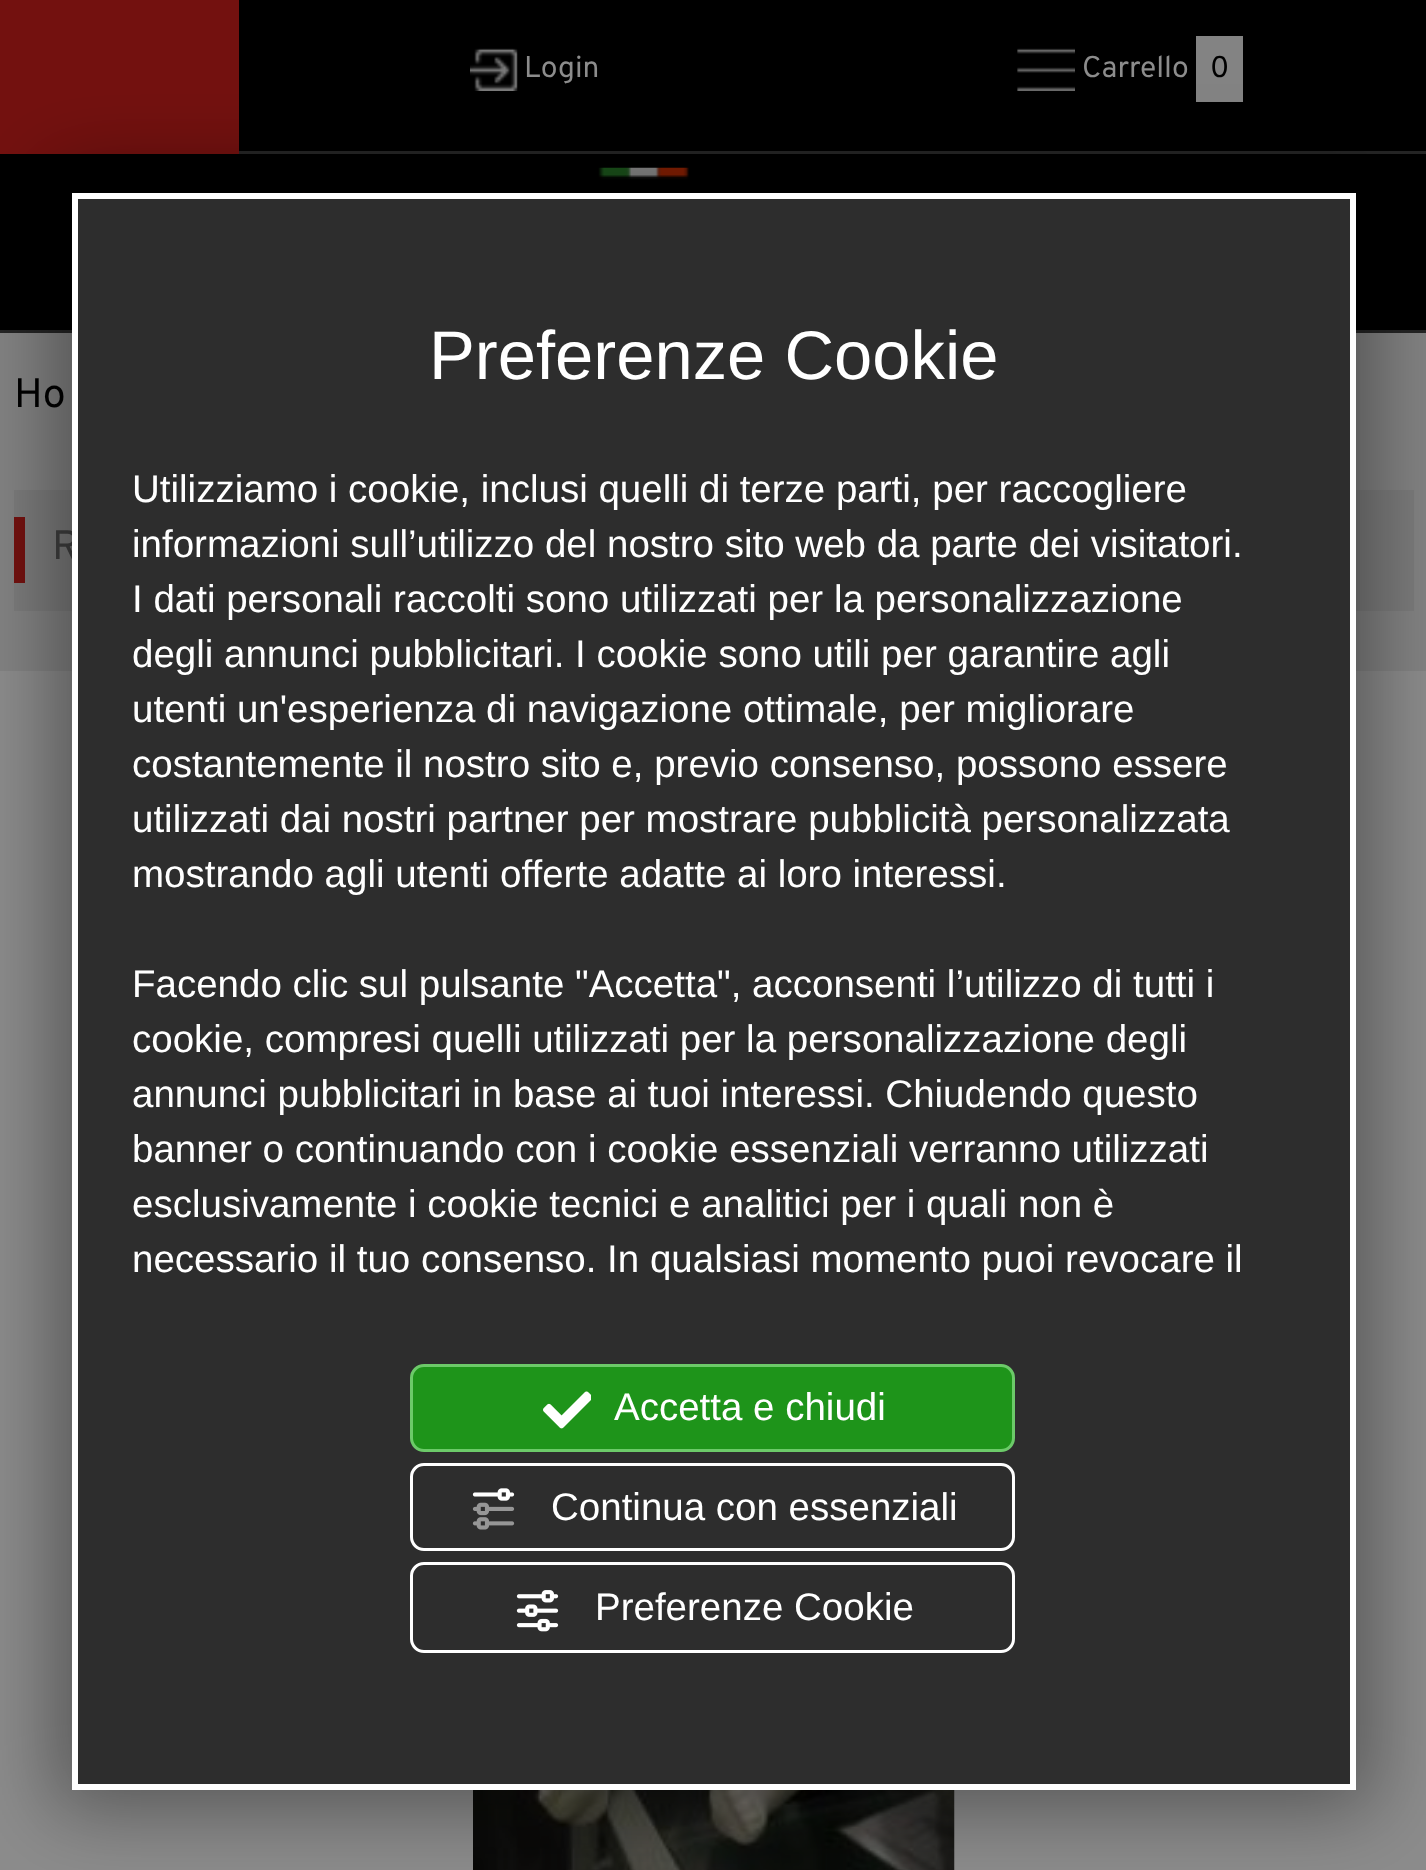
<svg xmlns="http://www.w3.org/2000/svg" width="1426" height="1870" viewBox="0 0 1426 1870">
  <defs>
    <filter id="blur1" x="-50%" y="-200%" width="200%" height="500%"><feGaussianBlur stdDeviation="40"/></filter>
  </defs>
  <rect width="100%" height="100%" fill="#838383"/>
  <rect x="0" y="154" width="1426" height="176" fill="#000000"/>
  <rect x="239" y="0" width="1187" height="151" fill="#000000"/>
  <rect x="239" y="151" width="1187" height="3" fill="#252525"/>
  <rect x="0" y="0" width="239" height="154" fill="#73110f"/>
  <image x="470" y="48" width="48" height="43" href="img1.png"/>
  <text x="524" y="77" font-family="Overpass" font-size="30" fill="#8c8c8c">Login</text>
  <image x="1017" y="48" width="58" height="43" href="img2.png"/>
  <text x="1082" y="77" font-family="Overpass" font-size="30" fill="#8c8c8c">Carrello</text>
  <rect x="1196" y="36" width="47" height="66" fill="#838383"/>
  <text x="1210" y="77" font-family="Overpass" font-size="30" fill="#000000">0</text>
  <rect x="0" y="330" width="1426" height="3" fill="#252525"/>
  <image x="302" y="167" width="387" height="26" href="img3.png"/>
  <text x="14" y="407" font-family="Overpass" font-size="41" fill="#000000">Ho</text>
  <rect x="14" y="490" width="1400" height="121" fill="#7c7c7c"/>
  <rect x="14" y="517" width="11" height="66" fill="#73110f"/>
  <text x="52" y="559" font-family="Overpass" font-size="41" fill="#404040">R</text>
  <rect x="0" y="671" width="1426" height="1199" fill="#8c8c8c"/>
  <image x="473" y="1790" width="482" height="80" href="img4.png"/>
  <rect x="52" y="173" width="1323" height="1637" fill="#000000" fill-opacity="0.38" filter="url(#blur1)"/>
  <rect x="75" y="196" width="1278" height="1591" fill="#2d2d2d" stroke="#ffffff" stroke-width="6"/>
  <text x="429" y="379" font-family="Liberation Sans" font-size="68.75" fill="#ffffff">Preferenze Cookie</text>
  <text x="132" y="502" font-family="Liberation Sans" font-size="38.5" fill="#ffffff">Utilizziamo i cookie, inclusi quelli di terze parti, per raccogliere</text>
  <text x="132" y="557" font-family="Liberation Sans" font-size="38.5" fill="#ffffff">informazioni sull’utilizzo del nostro sito web da parte dei visitatori.</text>
  <text x="132" y="612" font-family="Liberation Sans" font-size="38.5" fill="#ffffff">I dati personali raccolti sono utilizzati per la personalizzazione</text>
  <text x="132" y="667" font-family="Liberation Sans" font-size="38.5" fill="#ffffff">degli annunci pubblicitari. I cookie sono utili per garantire agli</text>
  <text x="132" y="722" font-family="Liberation Sans" font-size="38.5" fill="#ffffff">utenti un'esperienza di navigazione ottimale, per migliorare</text>
  <text x="132" y="777" font-family="Liberation Sans" font-size="38.5" fill="#ffffff">costantemente il nostro sito e, previo consenso, possono essere</text>
  <text x="132" y="832" font-family="Liberation Sans" font-size="38.5" fill="#ffffff">utilizzati dai nostri partner per mostrare pubblicità personalizzata</text>
  <text x="132" y="887" font-family="Liberation Sans" font-size="38.5" fill="#ffffff">mostrando agli utenti offerte adatte ai loro interessi.</text>
  <text x="132" y="997" font-family="Liberation Sans" font-size="38.5" fill="#ffffff">Facendo clic sul pulsante "Accetta", acconsenti l’utilizzo di tutti i</text>
  <text x="132" y="1052" font-family="Liberation Sans" font-size="38.5" fill="#ffffff">cookie, compresi quelli utilizzati per la personalizzazione degli</text>
  <text x="132" y="1107" font-family="Liberation Sans" font-size="38.5" fill="#ffffff">annunci pubblicitari in base ai tuoi interessi. Chiudendo questo</text>
  <text x="132" y="1162" font-family="Liberation Sans" font-size="38.5" fill="#ffffff">banner o continuando con i cookie essenziali verranno utilizzati</text>
  <text x="132" y="1217" font-family="Liberation Sans" font-size="38.5" fill="#ffffff">esclusivamente i cookie tecnici e analitici per i quali non è</text>
  <text x="132" y="1272" font-family="Liberation Sans" font-size="38.5" fill="#ffffff">necessario il tuo consenso. In qualsiasi momento puoi revocare il</text>
  <rect x="411.5" y="1365.5" width="602" height="85" rx="12.5" fill="#1e941a" stroke="#6cca69" stroke-width="3"/>
  <image x="543" y="1391" width="48" height="38" href="img5.png"/>
  <text x="614" y="1420" font-family="Liberation Sans" font-size="38.5" fill="#ffffff">Accetta e chiudi</text>
  <rect x="411.5" y="1464.5" width="602" height="85" rx="12.5" fill="none" stroke="#ffffff" stroke-width="3"/>
  <image x="472" y="1488" width="43" height="42" href="img6.png"/>
  <text x="551" y="1520" font-family="Liberation Sans" font-size="38.5" fill="#ffffff">Continua con essenziali</text>
  <rect x="411.5" y="1563.5" width="602" height="88" rx="12.5" fill="none" stroke="#ffffff" stroke-width="3"/>
  <image x="516" y="1590" width="43" height="42" href="img7.png"/>
  <text x="595" y="1620" font-family="Liberation Sans" font-size="38.5" fill="#ffffff">Preferenze Cookie</text>
</svg>
